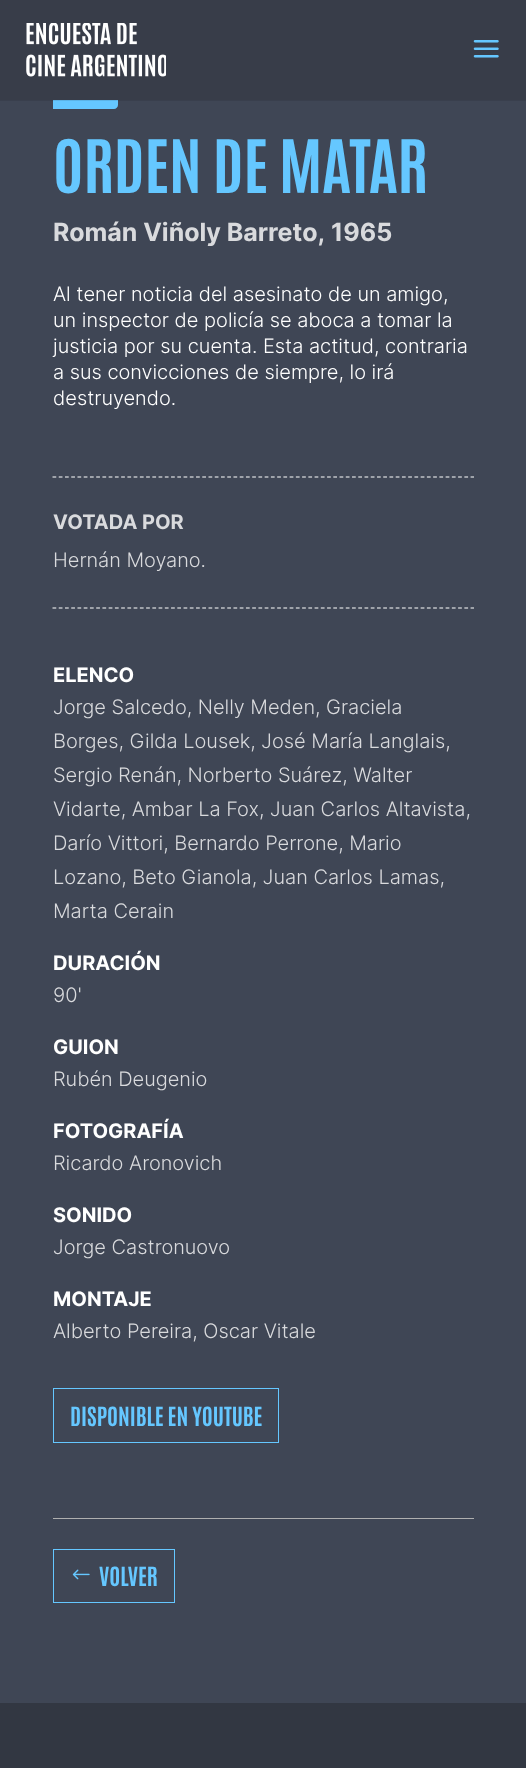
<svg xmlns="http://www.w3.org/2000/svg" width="526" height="1768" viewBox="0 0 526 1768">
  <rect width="100%" height="100%" fill="#3f4655"/>
  <rect x="0" y="100" width="526" height="1" fill="#393f4d"/>
  <path d="M53 69H114C116 69 118 71 118 73V105C118 107 116 109 114 109H53Z" fill="#65c7ff"/>
  <rect x="0" y="0" width="526" height="100" fill="#383d49"/>
  <image x="26" y="23" width="140" height="54" href="img1.png"/>
  <image x="473" y="40" width="26" height="18" href="img2.png"/>
  <rect x="53" y="100" width="65" height="1" fill="#5bb3e6"/>
  <text x="53" y="193" font-family="Antonio" font-size="62.5" font-weight="bold" fill="#65c7ff">ORDEN DE MATAR</text>
  <text x="53" y="241" font-family="Inter" font-size="25" font-weight="bold" fill="#d9dadd">Román Viñoly Barreto,</text>
  <text x="331" y="241" font-family="Inter" font-size="25" font-weight="bold" fill="#d9dadd">1965</text>
  <text x="53" y="301" font-family="Inter" font-size="20" font-weight="300" fill="#ffffff">Al tener noticia del asesinato de un amigo,</text>
  <text x="53" y="327" font-family="Inter" font-size="20" font-weight="300" fill="#ffffff">un inspector de policía se aboca a tomar la</text>
  <text x="53" y="353" font-family="Inter" font-size="20" font-weight="300" fill="#ffffff">justicia por su cuenta. Esta actitud, contraria</text>
  <text x="53" y="379" font-family="Inter" font-size="20" font-weight="300" fill="#ffffff">a sus convicciones de siempre, lo irá</text>
  <text x="53" y="405" font-family="Inter" font-size="20" font-weight="300" fill="#ffffff">destruyendo.</text>
  <path d="M52.5 477H474" fill="none" stroke="#ffffff" stroke-width="1.2" stroke-dasharray="3.75 2.49"/>
  <text x="53" y="529" font-family="Inter" font-size="20" font-weight="bold" fill="#d9dadd">VOTADA POR</text>
  <text x="53" y="567" font-family="Inter" font-size="20" font-weight="300" fill="#d9dadd">Hernán Moyano.</text>
  <path d="M52.5 608H474" fill="none" stroke="#ffffff" stroke-width="1.2" stroke-dasharray="3.75 2.49"/>
  <text x="53" y="682" font-family="Inter" font-size="20" font-weight="bold" fill="#ffffff">ELENCO</text>
  <text x="53" y="714" font-family="Inter" font-size="20" font-weight="300" fill="#d9dadd">Jorge Salcedo, Nelly Meden, Graciela</text>
  <text x="53" y="748" font-family="Inter" font-size="20" font-weight="300" fill="#d9dadd">Borges, Gilda Lousek, José María Langlais,</text>
  <text x="53" y="782" font-family="Inter" font-size="20" font-weight="300" fill="#d9dadd">Sergio Renán, Norberto Suárez, Walter</text>
  <text x="53" y="816" font-family="Inter" font-size="20" font-weight="300" fill="#d9dadd">Vidarte, Ambar La Fox, Juan Carlos Altavista,</text>
  <text x="53" y="850" font-family="Inter" font-size="20" font-weight="300" fill="#d9dadd">Darío Vittori, Bernardo Perrone, Mario</text>
  <text x="53" y="884" font-family="Inter" font-size="20" font-weight="300" fill="#d9dadd">Lozano, Beto Gianola, Juan Carlos Lamas,</text>
  <text x="53" y="918" font-family="Inter" font-size="20" font-weight="300" fill="#d9dadd">Marta Cerain</text>
  <text x="53" y="970" font-family="Inter" font-size="20" font-weight="bold" fill="#ffffff">DURACIÓN</text>
  <text x="53" y="1002" font-family="Inter" font-size="20" font-weight="300" fill="#d9dadd">90'</text>
  <text x="53" y="1054" font-family="Inter" font-size="20" font-weight="bold" fill="#ffffff">GUION</text>
  <text x="53" y="1086" font-family="Inter" font-size="20" font-weight="300" fill="#d9dadd">Rubén Deugenio</text>
  <text x="53" y="1138" font-family="Inter" font-size="20" font-weight="bold" fill="#ffffff">FOTOGRAFÍA</text>
  <text x="53" y="1170" font-family="Inter" font-size="20" font-weight="300" fill="#d9dadd">Ricardo Aronovich</text>
  <text x="53" y="1222" font-family="Inter" font-size="20" font-weight="bold" fill="#ffffff">SONIDO</text>
  <text x="53" y="1254" font-family="Inter" font-size="20" font-weight="300" fill="#d9dadd">Jorge Castronuovo</text>
  <text x="53" y="1306" font-family="Inter" font-size="20" font-weight="bold" fill="#ffffff">MONTAJE</text>
  <text x="53" y="1338" font-family="Inter" font-size="20" font-weight="300" fill="#d9dadd">Alberto Pereira, Oscar Vitale</text>
  <rect x="53.5" y="1388.5" width="225" height="54" fill="none" stroke="#65c7ff"/>
  <text x="70" y="1426" font-family="Antonio" font-size="22.5" font-weight="bold" fill="#65c7ff">DISPONIBLE EN YOUTUBE</text>
  <rect x="53" y="1518" width="421" height="1" fill="#afafaf"/>
  <rect x="53.5" y="1549.5" width="121" height="53" fill="none" stroke="#65c7ff"/>
  <image x="72" y="1569" width="18" height="11" href="img3.png"/>
  <text x="99" y="1586" font-family="Antonio" font-size="22.5" font-weight="bold" fill="#65c7ff">VOLVER</text>
  <rect x="0" y="1703" width="526" height="65" fill="#323742"/>
</svg>
